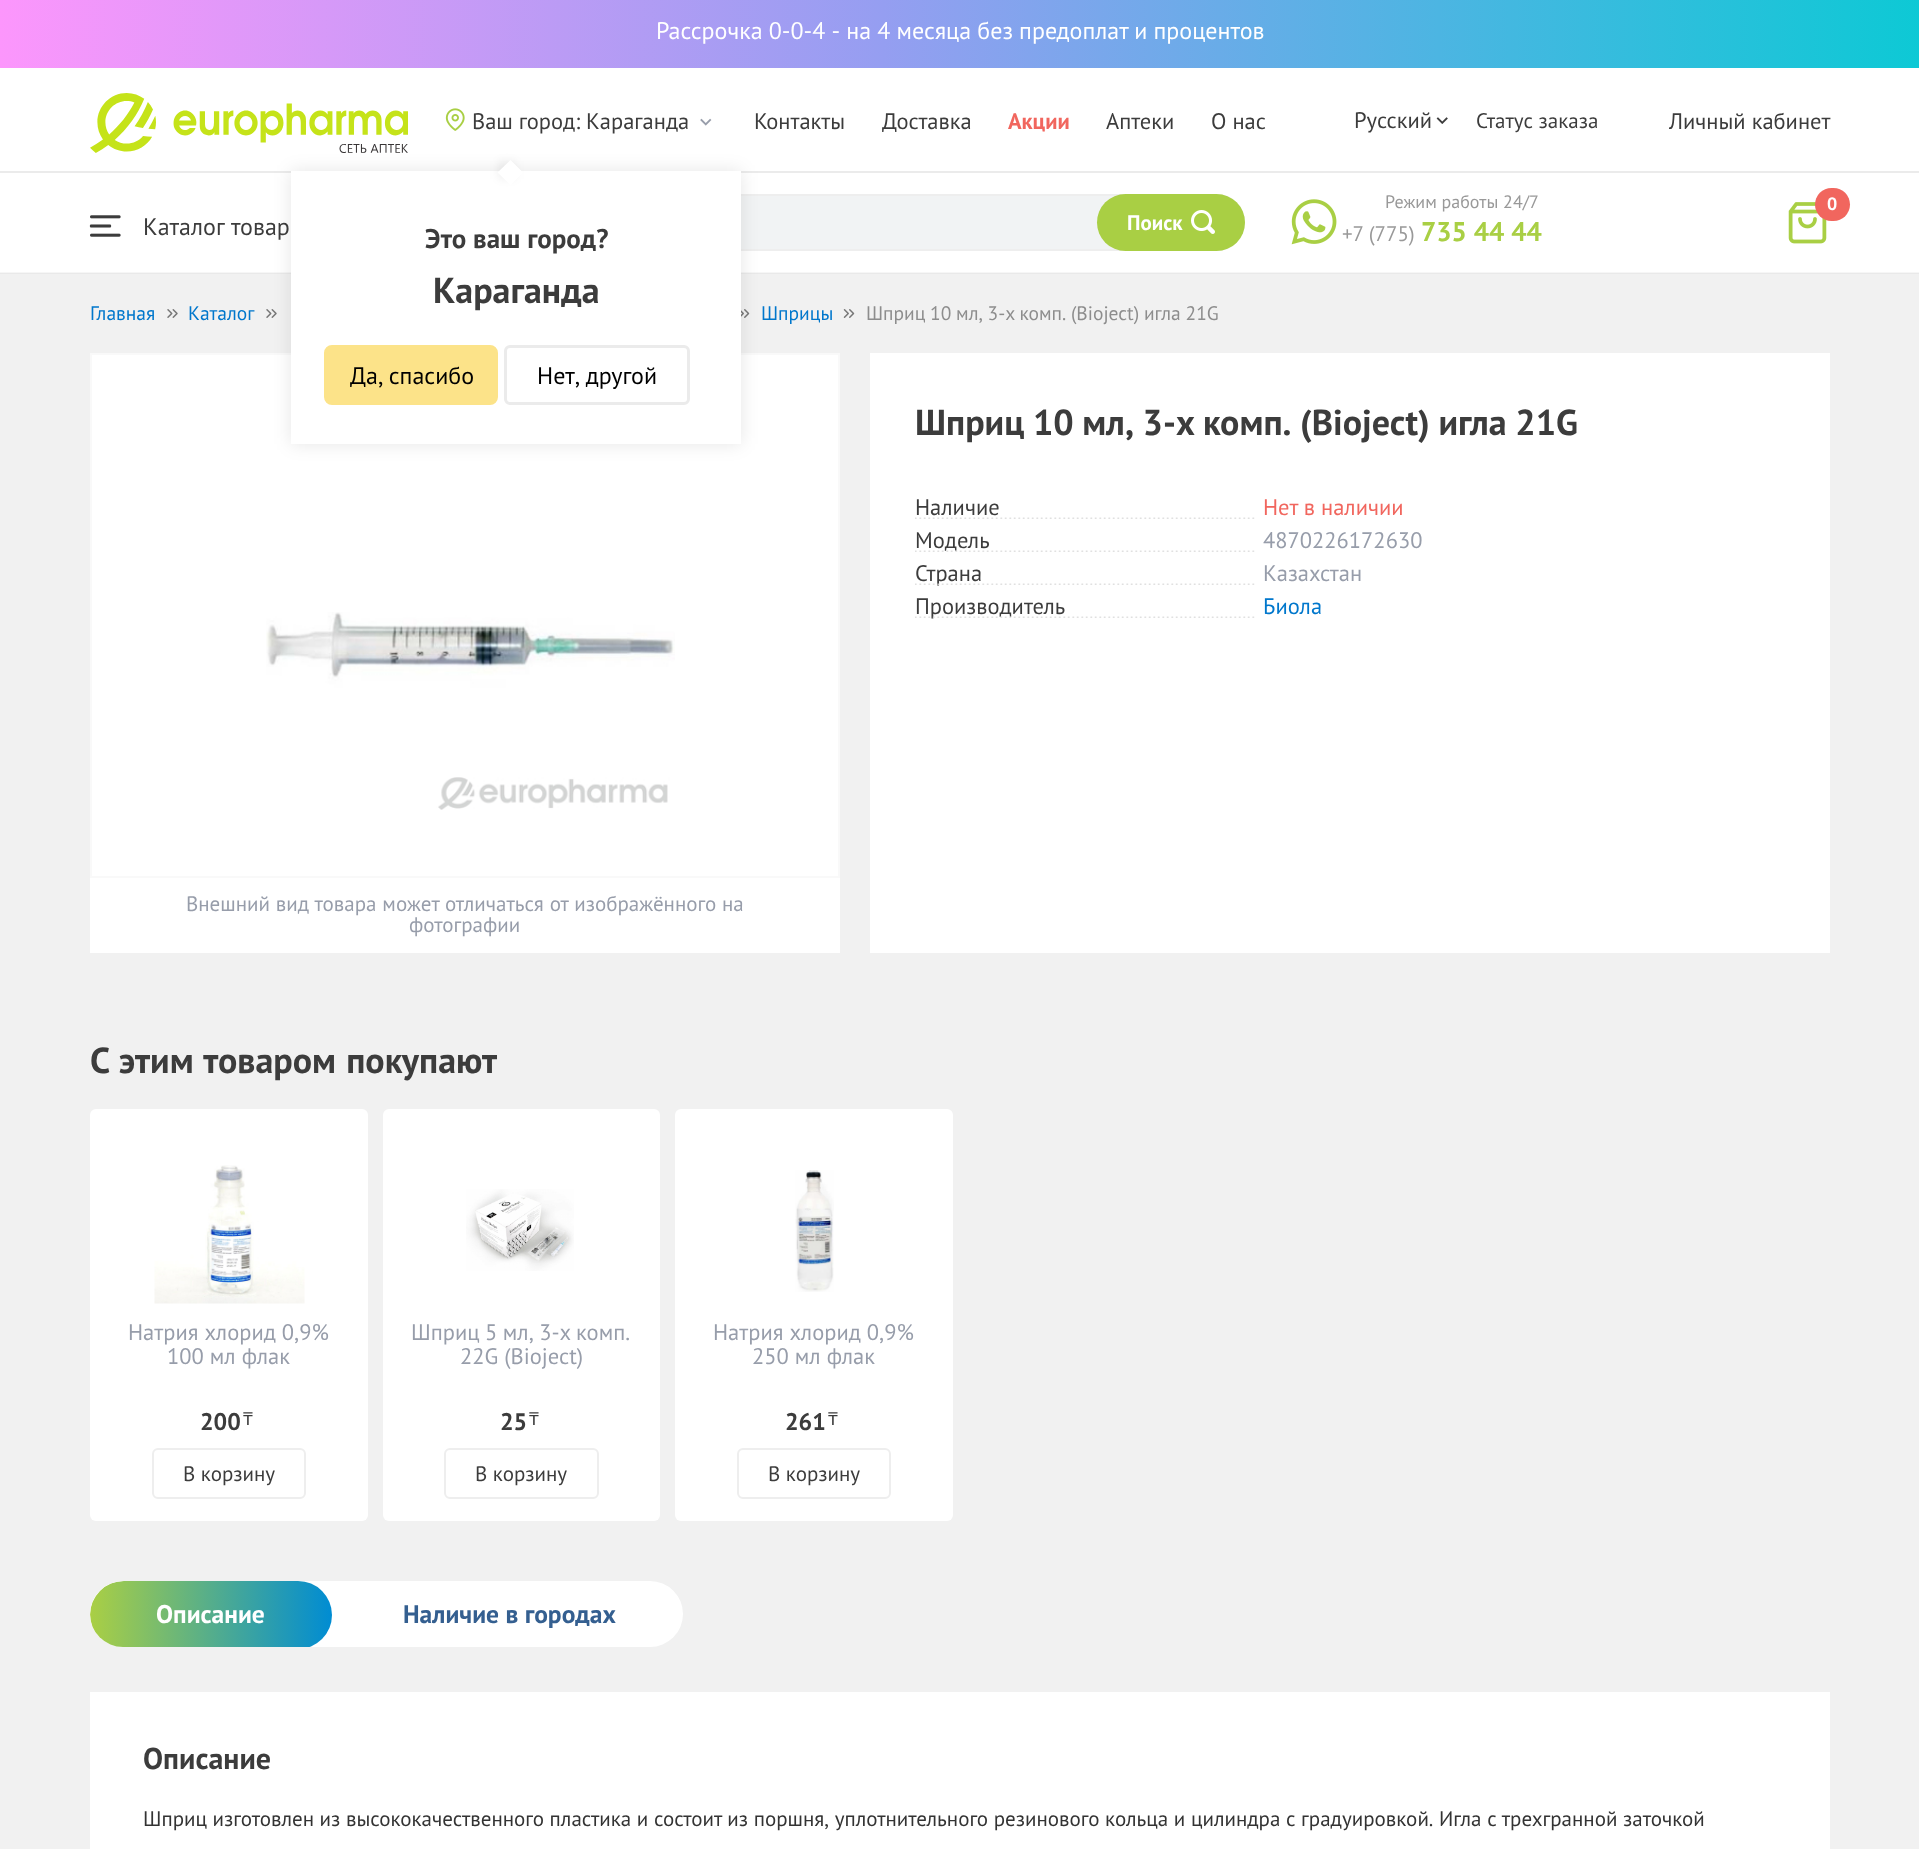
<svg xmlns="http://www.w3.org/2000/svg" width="1919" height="1849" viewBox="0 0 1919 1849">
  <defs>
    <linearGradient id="g1" gradientUnits="userSpaceOnUse" x1="0" y1="35" x2="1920" y2="33"><stop offset="0" stop-color="#fc96fc"/><stop offset="0.46" stop-color="#959ef1"/><stop offset="1" stop-color="#0dc9d5"/></linearGradient>
    <filter id="blur1" x="-50%" y="-200%" width="200%" height="500%"><feGaussianBlur stdDeviation="9"/></filter>
    <filter id="blur2" x="-50%" y="-200%" width="200%" height="500%"><feGaussianBlur stdDeviation="4"/></filter>
    <clipPath id="clip1"><rect x="90" y="1581" width="593" height="66" rx="33"/></clipPath>
    <linearGradient id="g2" gradientUnits="userSpaceOnUse" x1="90" y1="1615" x2="332" y2="1615"><stop offset="0" stop-color="#aacf44"/><stop offset="1" stop-color="#008cd3"/></linearGradient>
  </defs>
  <rect width="100%" height="100%" fill="#f1f1f1"/>
  <rect x="0" y="273" width="1919" height="1" fill="#e9e9e9"/>
  <rect x="0" y="0" width="1919" height="68" fill="url(#g1)"/>
  <text x="656" y="39" word-spacing="-0.25" font-family="PT Sans" font-size="24" fill="#ffffff">Рассрочка 0-0-4 - на 4 месяца без предоплат и процентов</text>
  <rect x="0" y="68" width="1919" height="204" fill="#ffffff"/>
  <rect x="0" y="272" width="1919" height="1" fill="#f6f6f6"/>
  <rect x="0" y="171" width="1919" height="2" fill="#ebebeb"/>
  <image x="90" y="93" width="318" height="60" href="img1.png"/>
  <image x="445" y="108" width="20" height="23" href="img2.png"/>
  <text x="472" y="129" font-family="PT Sans" font-size="22.5" fill="#3c3c3c">Ваш город: Караганда</text>
  <image x="700" y="118" width="12" height="8" href="img3.png"/>
  <rect x="436" y="195" width="808" height="55" rx="27.5" fill="#f1f3f4" stroke="#eeeeee" stroke-width="2"/>
  <image x="266" y="309" width="11" height="9" href="img9.png"/>
  <image x="741" y="309" width="9" height="9" href="img10.png"/>
  <rect x="90" y="355" width="750" height="598" fill="#ffffff"/>
  <rect x="91" y="354" width="748" height="523" fill="none" stroke="#f9f9f9" stroke-width="2"/>
  <rect x="291" y="171" width="450" height="273" fill="#000000" fill-opacity="0.1" filter="url(#blur1)"/>
  <rect x="291" y="171" width="450" height="273" fill="#ffffff"/>
  <rect x="498" y="161" width="18" height="18" fill="#000000" fill-opacity="0.06" filter="url(#blur2)"/>
  <path d="M510.5 160L523 172.5L510.5 185L497.5 172.5Z" fill="#ffffff"/>
  <text x="425" y="248" font-family="PT Sans" font-size="27" font-weight="bold" fill="#3c3c3c">Это ваш город?</text>
  <text x="433" y="303" font-family="PT Sans" font-size="36" font-weight="bold" fill="#3c3c3c">Караганда</text>
  <rect x="325.5" y="346.5" width="171" height="57" rx="6.5" fill="#fce389" stroke="#fce389" stroke-width="3"/>
  <text x="350" y="384" word-spacing="-1" font-family="PT Sans" font-size="24" fill="#000000">Да, спасибо</text>
  <rect x="505.5" y="346.5" width="183" height="57" rx="4.5" fill="none" stroke="#ebebeb" stroke-width="3"/>
  <text x="537" y="384" word-spacing="-1" font-family="PT Sans" font-size="24" fill="#000000">Нет, другой</text>
  <text x="754" y="129" font-family="PT Sans" font-size="22.5" fill="#3c3c3c">Контакты</text>
  <text x="882" y="129" font-family="PT Sans" font-size="22.5" fill="#3c3c3c">Доставка</text>
  <text x="1008" y="129" font-family="PT Sans" font-size="22.5" font-weight="bold" fill="#f1665e">Акции</text>
  <text x="1106" y="129" font-family="PT Sans" font-size="22.5" fill="#3c3c3c">Аптеки</text>
  <text x="1211" y="129" font-family="PT Sans" font-size="22.5" fill="#3c3c3c">О нас</text>
  <text x="1354" y="128" font-family="PT Sans" font-size="22.5" fill="#3c3c3c">Русский</text>
  <image x="1436" y="117" width="12" height="7" href="img4.png"/>
  <text x="1476" y="128" font-family="PT Sans" font-size="21" fill="#3c3c3c">Статус заказа</text>
  <text x="1669" y="129" font-family="PT Sans" font-size="22.5" fill="#3c3c3c">Личный кабинет</text>
  <image x="1291" y="199" width="46" height="46" href="img5.png"/>
  <text x="1385" y="208" font-family="PT Sans" font-size="18" fill="#999999">Режим работы 24/7</text>
  <text x="1342" y="241" word-spacing="-1" font-family="PT Sans" font-size="21" fill="#999999">+7 (775)</text>
  <text x="1421" y="241" font-family="PT Sans" font-size="27" font-weight="bold" fill="#a9cf44">735 44 44</text>
  <image x="1788" y="202" width="39" height="42" href="img6.png"/>
  <rect x="1815" y="188" width="35" height="33" rx="16.5" fill="#f1665e"/>
  <text x="1827" y="210" font-family="PT Sans" font-size="18" font-weight="bold" fill="#ffffff">0</text>
  <image x="89" y="215" width="32" height="22" href="img7.png"/>
  <text x="143" y="235" word-spacing="1" font-family="PT Sans" font-size="24" fill="#3c3c3c">Каталог товар</text>
  <rect x="1097" y="194" width="148" height="57" rx="28.5" fill="#a9cf44"/>
  <text x="1127" y="230" font-family="PT Sans" font-size="21" font-weight="bold" fill="#ffffff">Поиск</text>
  <image x="1191" y="210" width="24" height="24" href="img8.png"/>
  <text x="90" y="320" font-family="PT Sans" font-size="19.5" fill="#0077cc">Главная</text>
  <image x="167" y="309" width="11" height="9" href="img9.png"/>
  <text x="188" y="320" font-family="PT Sans" font-size="19.5" fill="#0077cc">Каталог</text>
  <text x="761" y="320" font-family="PT Sans" font-size="19.5" fill="#0077cc">Шприцы</text>
  <image x="843" y="309" width="12" height="9" href="img11.png"/>
  <text x="866" y="320" word-spacing="-0.5" font-family="PT Sans" font-size="19.5" fill="#8d8d8d">Шприц 10 мл, 3-х комп. (Bioject) игла 21G</text>
  <rect x="870" y="353" width="960" height="600" fill="#ffffff"/>
  <text x="915" y="435" word-spacing="-0.5" font-family="PT Sans" font-size="36" font-weight="bold" fill="#3c3c3c">Шприц 10 мл, 3-х комп. (Bioject) игла 21G</text>
  <text x="915" y="515" font-family="PT Sans" font-size="22.5" fill="#3c3c3c">Наличие</text>
  <image x="915" y="517" width="340" height="2" href="img12.png"/>
  <text x="1263" y="515" font-family="PT Sans" font-size="22.5" fill="#f1665e">Нет в наличии</text>
  <text x="915" y="548" font-family="PT Sans" font-size="22.5" fill="#3c3c3c">Модель</text>
  <image x="915" y="550" width="340" height="2" href="img13.png"/>
  <text x="1263" y="548" font-family="PT Sans" font-size="22.5" fill="#979daa">4870226172630</text>
  <text x="915" y="581" font-family="PT Sans" font-size="22.5" fill="#3c3c3c">Страна</text>
  <image x="915" y="583" width="340" height="2" href="img14.png"/>
  <text x="1263" y="581" font-family="PT Sans" font-size="22.5" fill="#979daa">Казахстан</text>
  <text x="915" y="614" font-family="PT Sans" font-size="22.5" fill="#3c3c3c">Производитель</text>
  <image x="915" y="616" width="340" height="2" href="img15.png"/>
  <text x="1263" y="614" font-family="PT Sans" font-size="22.5" fill="#0077cc">Биола</text>
  <image x="266" y="612" width="409" height="198" href="img16.png"/>
  <text x="186" y="911" word-spacing="0.25" font-family="PT Sans" font-size="21" fill="#979daa">Внешний вид товара может отличаться от изображённого на</text>
  <text x="409" y="932" font-family="PT Sans" font-size="21" fill="#979daa">фотографии</text>
  <text x="90" y="1073" word-spacing="1" font-family="PT Sans" font-size="36" font-weight="bold" fill="#3c3c3c">С этим товаром покупают</text>
  <rect x="90" y="1109" width="278" height="412" rx="6" fill="#ffffff"/>
  <image x="154" y="1165" width="151" height="139" href="img17.png"/>
  <text x="128" y="1340" font-family="PT Sans" font-size="22.5" fill="#979daa">Натрия хлорид 0,9%</text>
  <text x="167" y="1364" font-family="PT Sans" font-size="22.5" fill="#979daa">100 мл флак</text>
  <text x="200" y="1430" font-family="PT Sans" font-size="24" font-weight="bold" fill="#3c3c3c">200</text>
  <text x="243" y="1425" font-family="Noto Sans" font-size="18" fill="#3c3c3c">₸</text>
  <rect x="153" y="1449" width="152" height="49" rx="5" fill="none" stroke="#eeeeee" stroke-width="2"/>
  <text x="183" y="1481" font-family="PT Sans" font-size="21" fill="#3c3c3c">В корзину</text>
  <rect x="383" y="1109" width="277" height="412" rx="6" fill="#ffffff"/>
  <image x="466" y="1189" width="108" height="82" href="img18.png"/>
  <text x="411" y="1340" word-spacing="-0.5" font-family="PT Sans" font-size="22.5" fill="#979daa">Шприц 5 мл, 3-х комп.</text>
  <text x="460" y="1364" font-family="PT Sans" font-size="22.5" fill="#979daa">22G (Bioject)</text>
  <text x="500" y="1430" font-family="PT Sans" font-size="24" font-weight="bold" fill="#3c3c3c">25</text>
  <text x="529" y="1425" font-family="Noto Sans" font-size="18" fill="#3c3c3c">₸</text>
  <rect x="445" y="1449" width="153" height="49" rx="5" fill="none" stroke="#eeeeee" stroke-width="2"/>
  <text x="475" y="1481" font-family="PT Sans" font-size="21" fill="#3c3c3c">В корзину</text>
  <rect x="675" y="1109" width="278" height="412" rx="6" fill="#ffffff"/>
  <image x="795" y="1170" width="39" height="122" href="img19.png"/>
  <text x="713" y="1340" font-family="PT Sans" font-size="22.5" fill="#979daa">Натрия хлорид 0,9%</text>
  <text x="752" y="1364" font-family="PT Sans" font-size="22.5" fill="#979daa">250 мл флак</text>
  <text x="785" y="1430" font-family="PT Sans" font-size="24" font-weight="bold" fill="#3c3c3c">261</text>
  <text x="828" y="1425" font-family="Noto Sans" font-size="18" fill="#3c3c3c">₸</text>
  <rect x="738" y="1449" width="152" height="49" rx="5" fill="none" stroke="#eeeeee" stroke-width="2"/>
  <text x="768" y="1481" font-family="PT Sans" font-size="21" fill="#3c3c3c">В корзину</text>
  <rect x="90" y="1581" width="593" height="66" rx="33" fill="#ffffff"/>
  <g clip-path="url(#clip1)">
    <rect x="90" y="1581" width="242" height="68" rx="34" fill="url(#g2)"/>
  </g>
  <text x="156" y="1623" font-family="PT Sans" font-size="25.5" font-weight="bold" fill="#ffffff">Описание</text>
  <text x="403" y="1623" font-family="PT Sans" font-size="25.5" font-weight="bold" fill="#345f90">Наличие в городах</text>
  <rect x="90" y="1692" width="1740" height="157" fill="#ffffff"/>
  <text x="143" y="1769" font-family="PT Sans" font-size="30" font-weight="bold" fill="#3c3c3c">Описание</text>
  <text x="143" y="1826" font-family="PT Sans" font-size="21" fill="#333333">Шприц изготовлен из высококачественного пластика и состоит из поршня, уплотнительного резинового кольца и цилиндра с градуировкой. Игла с трехгранной заточкой</text>
</svg>
